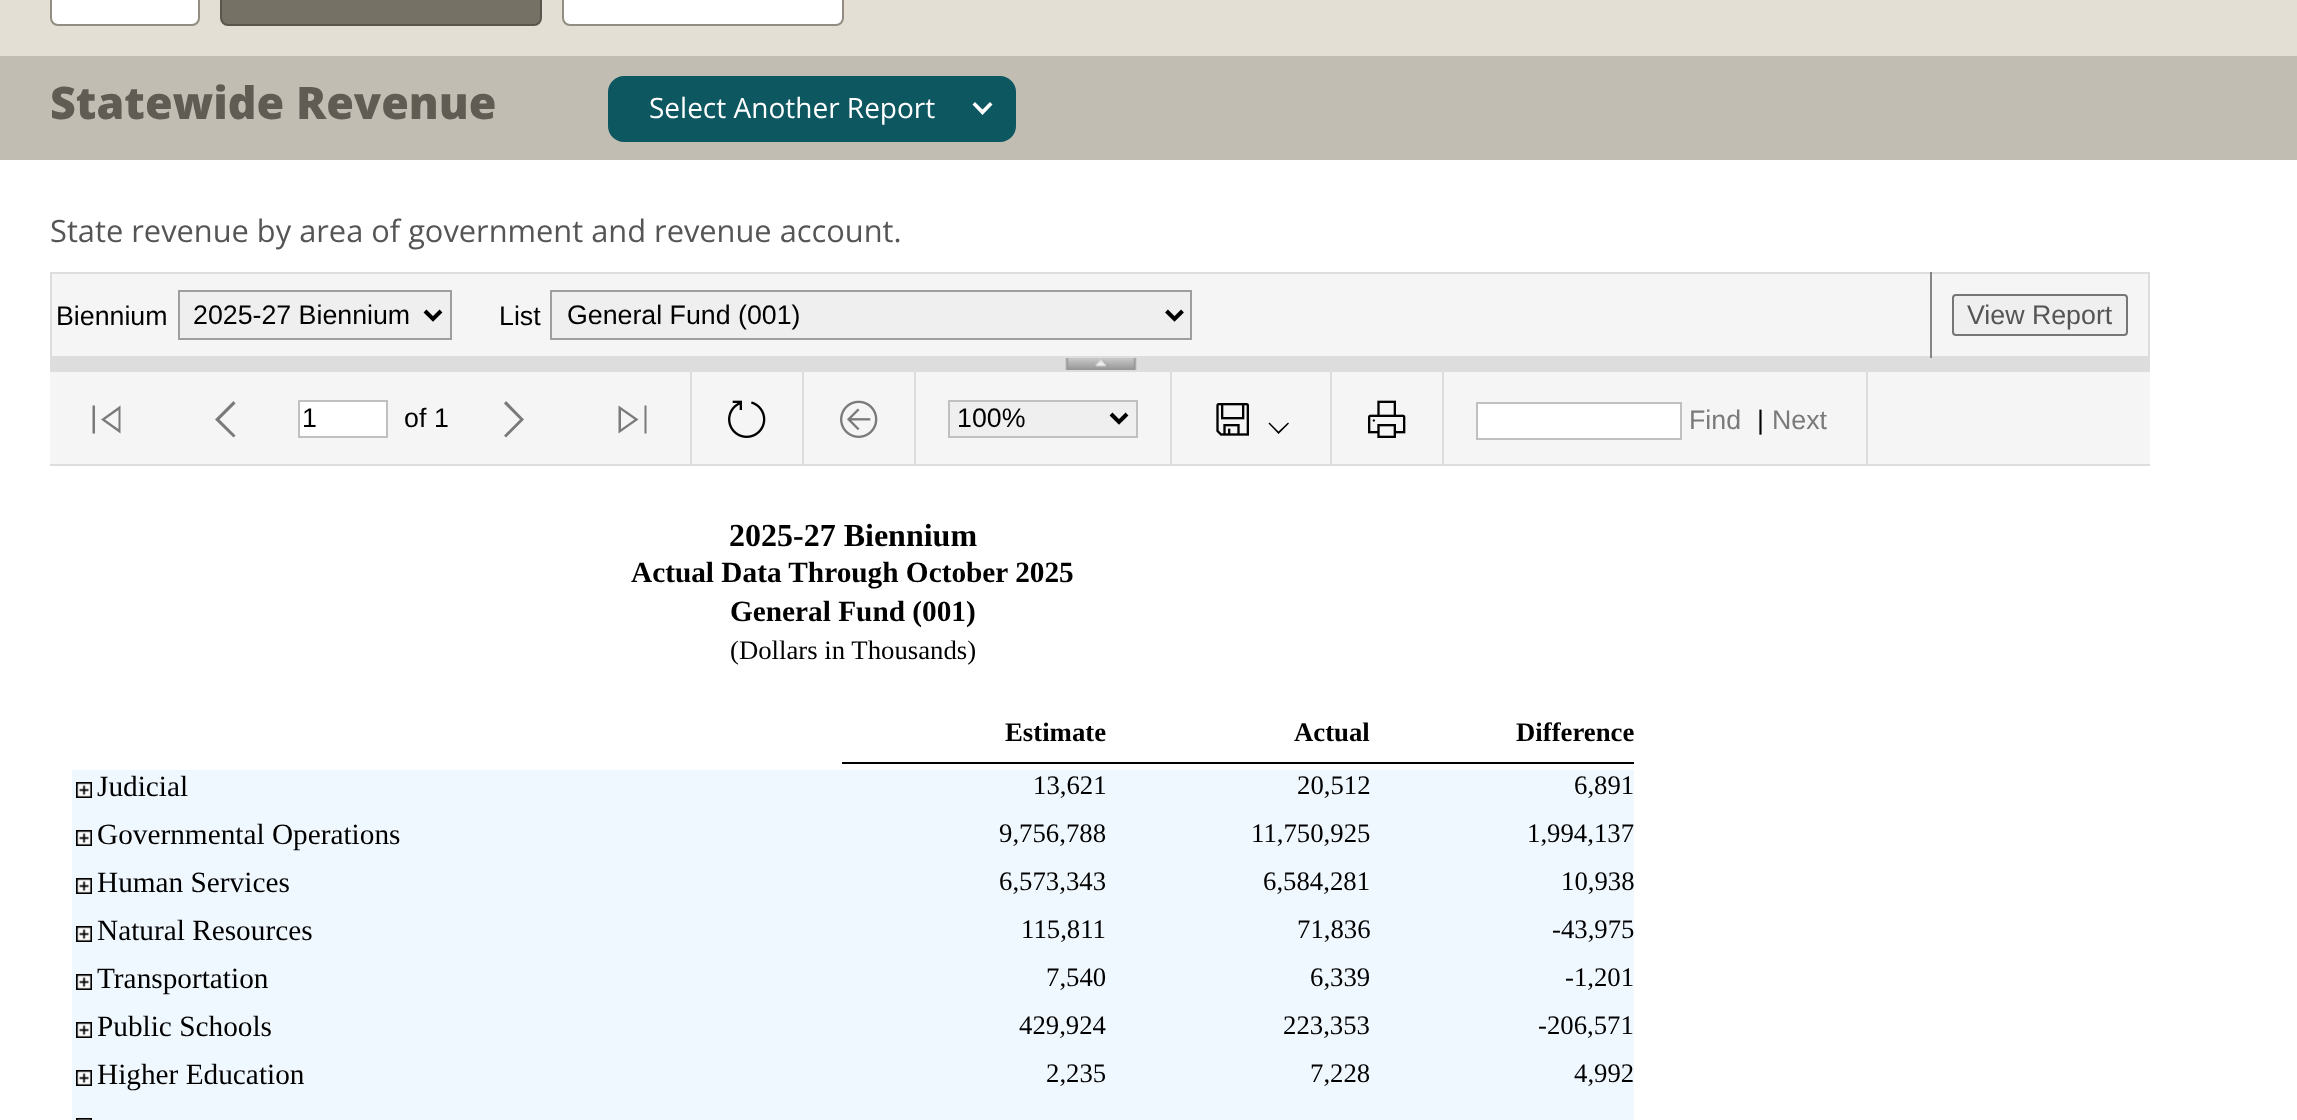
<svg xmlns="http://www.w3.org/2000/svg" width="2297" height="1120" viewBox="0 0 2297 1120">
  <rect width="100%" height="100%" fill="#e4dfd4"/>
  <rect x="51" y="-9" width="148" height="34" rx="7" fill="#ffffff" stroke="#938d81" stroke-width="2"/>
  <rect x="221" y="-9" width="320" height="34" rx="7" fill="#767165" stroke="#5a564e" stroke-width="2"/>
  <rect x="563" y="-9" width="280" height="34" rx="7" fill="#ffffff" stroke="#938d81" stroke-width="2"/>
  <rect x="0" y="56" width="2297" height="104" fill="#c2bdb3"/>
  <text x="50" y="119" font-family="Open Sans" font-size="44.75" font-weight="800" fill="#605c53">Statewide Revenue</text>
  <rect x="608" y="76" width="408" height="66" rx="16" fill="#0d5761"/>
  <text x="649" y="118" font-family="Open Sans" font-size="28" fill="#ffffff">Select Another Report</text>
  <path d="M990 102L982.5 109.5L975 102L972.5 104.5L982.5 115L992.5 104.5Z" fill="#ffffff"/>
  <rect x="0" y="160" width="2297" height="960" fill="#ffffff"/>
  <text x="50" y="242" font-family="Open Sans" font-size="30.8" fill="#555555">State revenue by area of government and revenue account.</text>
  <rect x="52" y="274" width="2096" height="82" fill="#f5f5f5"/>
  <rect x="50" y="272" width="2100" height="2" fill="#dddddd"/>
  <rect x="2148" y="272" width="2" height="86" fill="#dddddd"/>
  <rect x="50" y="356" width="2100" height="2" fill="#dddddd"/>
  <rect x="50" y="272" width="2" height="86" fill="#dddddd"/>
  <text x="56" y="325" font-family="Liberation Sans" font-size="26.75" fill="#000000">Biennium</text>
  <rect x="179" y="291" width="272" height="48" fill="#efefef" stroke="#9e9e9e" stroke-width="2"/>
  <path d="M425 311L433 319L441 311" fill="none" stroke="#000000" stroke-width="4"/>
  <text x="193" y="324" font-family="Liberation Sans" font-size="26.75" fill="#000000">2025-27 Biennium</text>
  <text x="499" y="325" font-family="Liberation Sans" font-size="26.75" fill="#000000">List</text>
  <rect x="551" y="291" width="640" height="48" fill="#efefef" stroke="#9e9e9e" stroke-width="2"/>
  <path d="M1166.5 311L1174.5 319L1182.5 311" fill="none" stroke="#000000" stroke-width="4"/>
  <text x="567" y="324" font-family="Liberation Sans" font-size="26.75" fill="#000000">General Fund (001)</text>
  <rect x="1930" y="272" width="2" height="86" fill="#868686"/>
  <rect x="1953" y="295" width="174" height="40" rx="3" fill="#efefef" stroke="#767676" stroke-width="2"/>
  <text x="1967" y="324" font-family="Liberation Sans" font-size="26.75" fill="#555555">View Report</text>
  <rect x="50" y="358" width="2100" height="14" fill="#dddddd"/>
  <image x="1065" y="358" width="72" height="12" href="img1.png"/>
  <rect x="50" y="372" width="2100" height="92" fill="#f5f5f5"/>
  <rect x="50" y="464" width="2100" height="2" fill="#dddddd"/>
  <rect x="690" y="372" width="2" height="92" fill="#dddddd"/>
  <path d="M92.5 433.5V405.5H95V433.5ZM101 419.5L120.5 405.5V433.5ZM118.5 429V410L105 419.5Z" fill="#7a7a7a"/>
  <path d="M233.5 437.5L215 419.5L233.5 401L235.5 403.5L219.5 419.5L235.5 435.5Z" fill="#7a7a7a"/>
  <rect x="299" y="401" width="88" height="36" fill="#ffffff" stroke="#c0c0c0" stroke-width="2"/>
  <text x="302" y="427" font-family="Liberation Sans" font-size="26.75" fill="#000000">1</text>
  <text x="404" y="427" font-family="Liberation Sans" font-size="26.75" fill="#000000">of</text>
  <text x="434" y="427" font-family="Liberation Sans" font-size="26.75" fill="#000000">1</text>
  <path d="M506 437.5L504 435.5L520 419.5L504 403.5L506 401L524 419.5Z" fill="#7a7a7a"/>
  <path d="M644.5 405.5H646.5V433.5H644.5ZM618.5 433.5V405.5L638.5 419.5ZM621 410V429L634.5 419.5Z" fill="#7a7a7a"/>
  <rect x="802" y="372" width="2" height="92" fill="#dddddd"/>
  <image x="728" y="400" width="38" height="38" href="img2.png"/>
  <rect x="914" y="372" width="2" height="92" fill="#dddddd"/>
  <image x="840" y="400" width="38" height="38" href="img3.png"/>
  <rect x="1170" y="372" width="2" height="92" fill="#dddddd"/>
  <rect x="949" y="401" width="188" height="36" fill="#efefef" stroke="#c0c0c0" stroke-width="2"/>
  <path d="M1111 414L1119 422L1127 414" fill="none" stroke="#000000" stroke-width="4"/>
  <text x="957" y="427" font-family="Liberation Sans" font-size="26.75" fill="#000000">100%</text>
  <rect x="1330" y="372" width="2" height="92" fill="#dddddd"/>
  <image x="1216" y="403" width="33" height="33" href="img4.png"/>
  <path d="M1278.5 434L1268.5 423.5L1269.5 422.5L1278.5 431.5L1288 422.5L1289 423.5Z" fill="#000000"/>
  <rect x="1442" y="372" width="2" height="92" fill="#dddddd"/>
  <image x="1368" y="400" width="38" height="38" href="img5.png"/>
  <rect x="1866" y="372" width="2" height="92" fill="#dddddd"/>
  <rect x="1477" y="403" width="204" height="36" fill="#ffffff" stroke="#c0c0c0" stroke-width="2"/>
  <text x="1689" y="429" font-family="Liberation Sans" font-size="26.75" fill="#7a7a7a">Find</text>
  <text x="1757" y="429" font-family="Liberation Sans" font-size="26.75" fill="#000000">|</text>
  <text x="1772" y="429" font-family="Liberation Sans" font-size="26.75" fill="#7a7a7a">Next</text>
  <text x="729" y="546" font-family="Liberation Serif" font-size="32" font-weight="bold" fill="#000000">2025-27 Biennium</text>
  <text x="631" y="582" font-family="Liberation Serif" font-size="29.3" font-weight="bold" fill="#000000">Actual Data Through October 2025</text>
  <text x="730" y="621" font-family="Liberation Serif" font-size="29.3" font-weight="bold" fill="#000000">General Fund (001)</text>
  <text x="730" y="659" font-family="Liberation Serif" font-size="26.75" fill="#000000">(Dollars in Thousands)</text>
  <rect x="842" y="762" width="792" height="2" fill="#000000"/>
  <text x="1005" y="741" font-family="Liberation Serif" font-size="26.75" font-weight="bold" fill="#000000">Estimate</text>
  <text x="1294" y="741" font-family="Liberation Serif" font-size="26.75" font-weight="bold" fill="#000000">Actual</text>
  <text x="1516" y="741" font-family="Liberation Serif" font-size="26.75" font-weight="bold" fill="#000000">Difference</text>
  <rect x="72" y="770" width="1562" height="48" fill="#f0f8ff"/>
  <image x="76" y="782" width="16" height="16" href="img6.png"/>
  <text x="97" y="796" font-family="Liberation Serif" font-size="29.3" fill="#000000">Judicial</text>
  <text x="1033" y="794" font-family="Liberation Serif" font-size="26.75" fill="#000000">13,621</text>
  <text x="1297" y="794" font-family="Liberation Serif" font-size="26.75" fill="#000000">20,512</text>
  <text x="1574" y="794" font-family="Liberation Serif" font-size="26.75" fill="#000000">6,891</text>
  <rect x="72" y="818" width="1562" height="48" fill="#f0f8ff"/>
  <image x="76" y="830" width="16" height="16" href="img6.png"/>
  <text x="97" y="844" font-family="Liberation Serif" font-size="29.3" fill="#000000">Governmental Operations</text>
  <text x="999" y="842" font-family="Liberation Serif" font-size="26.75" fill="#000000">9,756,788</text>
  <text x="1251" y="842" font-family="Liberation Serif" font-size="26.75" fill="#000000">11,750,925</text>
  <text x="1527" y="842" font-family="Liberation Serif" font-size="26.75" fill="#000000">1,994,137</text>
  <rect x="72" y="866" width="1562" height="48" fill="#f0f8ff"/>
  <image x="76" y="878" width="16" height="16" href="img6.png"/>
  <text x="97" y="892" font-family="Liberation Serif" font-size="29.3" fill="#000000">Human Services</text>
  <text x="999" y="890" font-family="Liberation Serif" font-size="26.75" fill="#000000">6,573,343</text>
  <text x="1263" y="890" font-family="Liberation Serif" font-size="26.75" fill="#000000">6,584,281</text>
  <text x="1561" y="890" font-family="Liberation Serif" font-size="26.75" fill="#000000">10,938</text>
  <rect x="72" y="914" width="1562" height="48" fill="#f0f8ff"/>
  <image x="76" y="926" width="16" height="16" href="img6.png"/>
  <text x="97" y="940" font-family="Liberation Serif" font-size="29.3" fill="#000000">Natural Resources</text>
  <text x="1021" y="938" font-family="Liberation Serif" font-size="26.75" fill="#000000">115,811</text>
  <text x="1297" y="938" font-family="Liberation Serif" font-size="26.75" fill="#000000">71,836</text>
  <text x="1552" y="938" font-family="Liberation Serif" font-size="26.75" fill="#000000">-43,975</text>
  <rect x="72" y="962" width="1562" height="48" fill="#f0f8ff"/>
  <image x="76" y="974" width="16" height="16" href="img6.png"/>
  <text x="97" y="988" font-family="Liberation Serif" font-size="29.3" fill="#000000">Transportation</text>
  <text x="1046" y="986" font-family="Liberation Serif" font-size="26.75" fill="#000000">7,540</text>
  <text x="1310" y="986" font-family="Liberation Serif" font-size="26.75" fill="#000000">6,339</text>
  <text x="1565" y="986" font-family="Liberation Serif" font-size="26.75" fill="#000000">-1,201</text>
  <rect x="72" y="1010" width="1562" height="48" fill="#f0f8ff"/>
  <image x="76" y="1022" width="16" height="16" href="img6.png"/>
  <text x="97" y="1036" font-family="Liberation Serif" font-size="29.3" fill="#000000">Public Schools</text>
  <text x="1019" y="1034" font-family="Liberation Serif" font-size="26.75" fill="#000000">429,924</text>
  <text x="1283" y="1034" font-family="Liberation Serif" font-size="26.75" fill="#000000">223,353</text>
  <text x="1538" y="1034" font-family="Liberation Serif" font-size="26.75" fill="#000000">-206,571</text>
  <rect x="72" y="1058" width="1562" height="48" fill="#f0f8ff"/>
  <image x="76" y="1070" width="16" height="16" href="img6.png"/>
  <text x="97" y="1084" font-family="Liberation Serif" font-size="29.3" fill="#000000">Higher Education</text>
  <text x="1046" y="1082" font-family="Liberation Serif" font-size="26.75" fill="#000000">2,235</text>
  <text x="1310" y="1082" font-family="Liberation Serif" font-size="26.75" fill="#000000">7,228</text>
  <text x="1574" y="1082" font-family="Liberation Serif" font-size="26.75" fill="#000000">4,992</text>
  <rect x="72" y="1106" width="1562" height="14" fill="#f0f8ff"/>
  <image x="76" y="1118" width="16" height="2" href="img7.png"/>
</svg>
